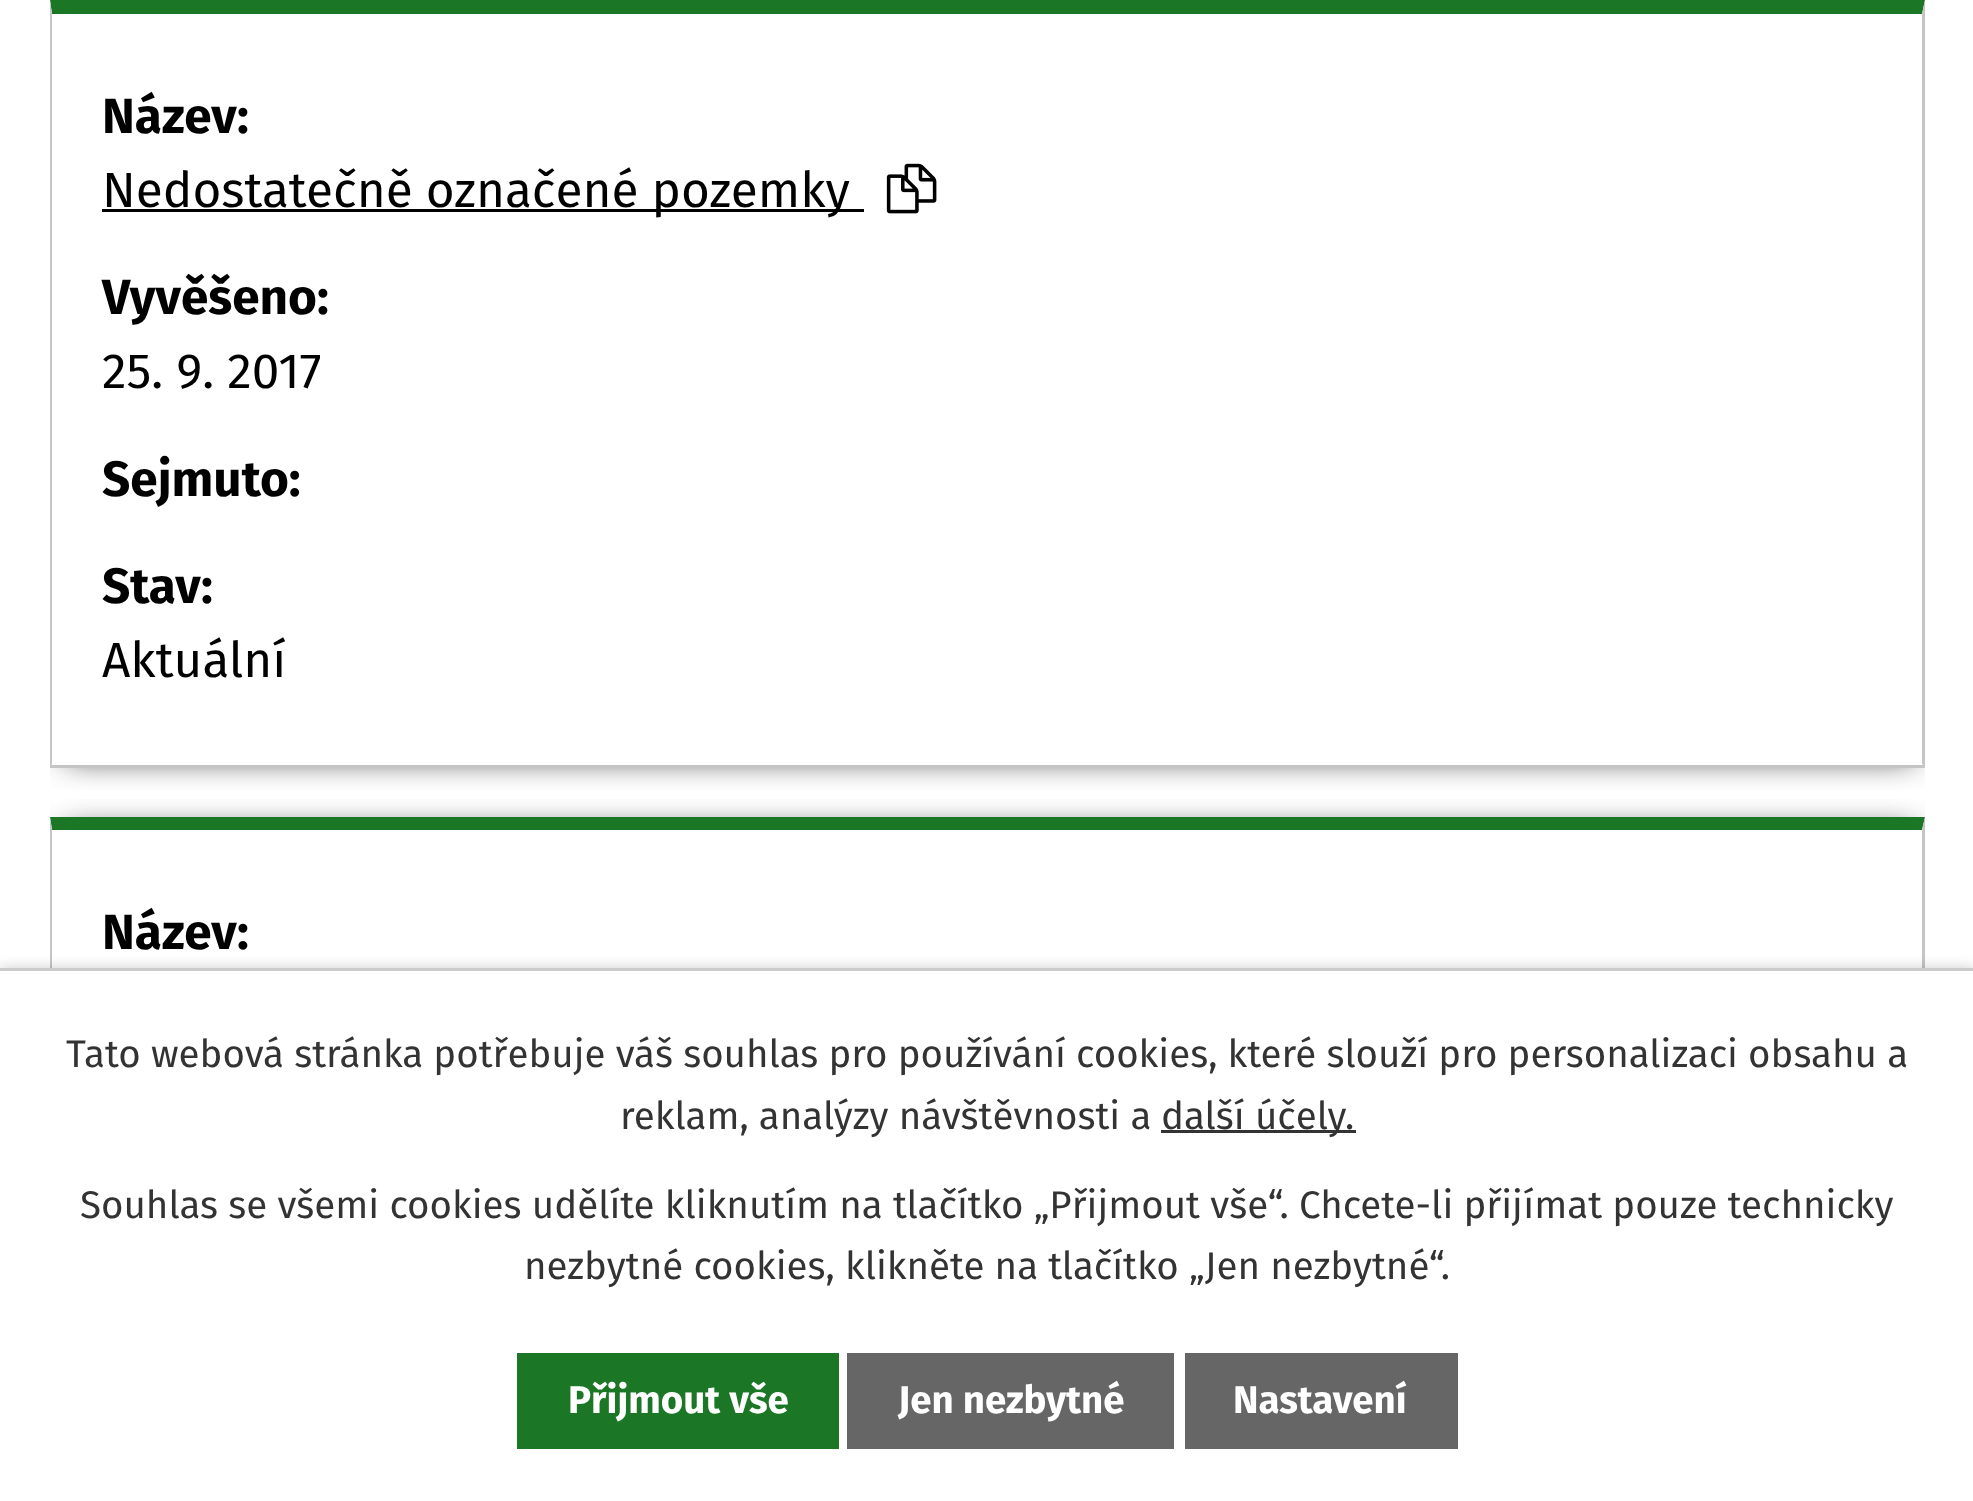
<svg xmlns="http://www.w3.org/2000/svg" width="1973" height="1501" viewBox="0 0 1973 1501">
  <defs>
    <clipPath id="clip1"><rect x="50" y="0" width="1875" height="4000"/></clipPath>
    <clipPath id="clip2"><rect x="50" y="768" width="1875" height="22"/></clipPath>
    <filter id="blur1" x="-50%" y="-200%" width="200%" height="500%"><feGaussianBlur stdDeviation="16.5"/></filter>
    <clipPath id="clip3"><rect x="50" y="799" width="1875" height="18"/></clipPath>
    <filter id="blur2" x="-50%" y="-200%" width="200%" height="500%"><feGaussianBlur stdDeviation="7"/></filter>
  </defs>
  <rect width="100%" height="100%" fill="#ffffff"/>
  <g clip-path="url(#clip1)">
    <g clip-path="url(#clip2)">
      <rect x="66" y="17" width="1848" height="739" fill="#000000" filter="url(#blur1)"/>
    </g>
  </g>
  <path d="M50 0H1925L1922 14H52Z" fill="#1b7626"/>
  <path d="M1925 0V767L1922 764V14Z" fill="#c5c5c5"/>
  <rect x="50" y="765" width="1875" height="3" fill="#c5c5c5"/>
  <path d="M50 767V0L52 14V764Z" fill="#c5c5c5"/>
  <text x="102" y="133" font-family="Fira Sans" font-size="49.5" font-weight="bold" fill="#000000">Název:</text>
  <rect x="102" y="209" width="762" height="3" fill="#000000"/>
  <text x="102" y="207" font-family="Fira Sans" font-size="49.5" fill="#000000">Nedostatečně označené pozemky</text>
  <image x="886" y="163" width="51" height="51" href="img1.png"/>
  <text x="102" y="314" font-family="Fira Sans" font-size="49.5" font-weight="bold" fill="#000000">Vyvěšeno:</text>
  <text x="102" y="388" font-family="Fira Sans" font-size="49.5" fill="#000000">25. 9. 2017</text>
  <text x="102" y="496" font-family="Fira Sans" font-size="49.5" font-weight="bold" fill="#000000">Sejmuto:</text>
  <text x="102" y="603" font-family="Fira Sans" font-size="49.5" font-weight="bold" fill="#000000">Stav:</text>
  <text x="102" y="677" font-family="Fira Sans" font-size="49.5" fill="#000000">Aktuální</text>
  <g clip-path="url(#clip1)">
    <g clip-path="url(#clip3)">
      <rect x="66" y="833" width="1848" height="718" fill="#000000" filter="url(#blur1)"/>
    </g>
  </g>
  <path d="M50 817H1925L1922 830H52Z" fill="#1b7626"/>
  <path d="M1925 817V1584L1922 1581V830Z" fill="#c5c5c5"/>
  <path d="M50 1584V817L52 830V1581Z" fill="#c5c5c5"/>
  <text x="102" y="949" font-family="Fira Sans" font-size="49.5" font-weight="bold" fill="#000000">Název:</text>
  <rect x="0" y="968" width="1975" height="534" fill="#000000" fill-opacity="0.2" filter="url(#blur2)"/>
  <rect x="0" y="971" width="1973" height="530" fill="#ffffff"/>
  <rect x="0" y="968" width="1973" height="3" fill="#cccccc"/>
  <text x="66" y="1067" font-family="Fira Sans" font-size="38.5" fill="#333333">Tato webová stránka potřebuje váš souhlas pro používání cookies, které slouží pro personalizaci obsahu a</text>
  <text x="620" y="1129" font-family="Fira Sans" font-size="38.5" fill="#333333">reklam, analýzy návštěvnosti a</text>
  <rect x="1161" y="1130" width="195" height="3" fill="#333333"/>
  <text x="1161" y="1129" font-family="Fira Sans" font-size="38.5" fill="#333333">další účely.</text>
  <text x="80" y="1218" font-family="Fira Sans" font-size="38.5" fill="#333333">Souhlas se všemi cookies udělíte kliknutím na tlačítko „Přijmout vše“. Chcete-li přijímat pouze technicky</text>
  <text x="524" y="1279" font-family="Fira Sans" font-size="38.5" fill="#333333">nezbytné cookies, klikněte na tlačítko „Jen nezbytné“.</text>
  <rect x="517" y="1353" width="322" height="96" fill="#1b7626"/>
  <text x="568" y="1413" font-family="Fira Sans" font-size="38.5" font-weight="bold" fill="#ffffff">Přijmout vše</text>
  <rect x="847" y="1353" width="327" height="96" fill="#666666"/>
  <text x="898" y="1413" font-family="Fira Sans" font-size="38.5" font-weight="bold" fill="#ffffff">Jen nezbytné</text>
  <rect x="1185" y="1353" width="273" height="96" fill="#666666"/>
  <text x="1233" y="1413" font-family="Fira Sans" font-size="38.5" font-weight="bold" fill="#ffffff">Nastavení</text>
</svg>
